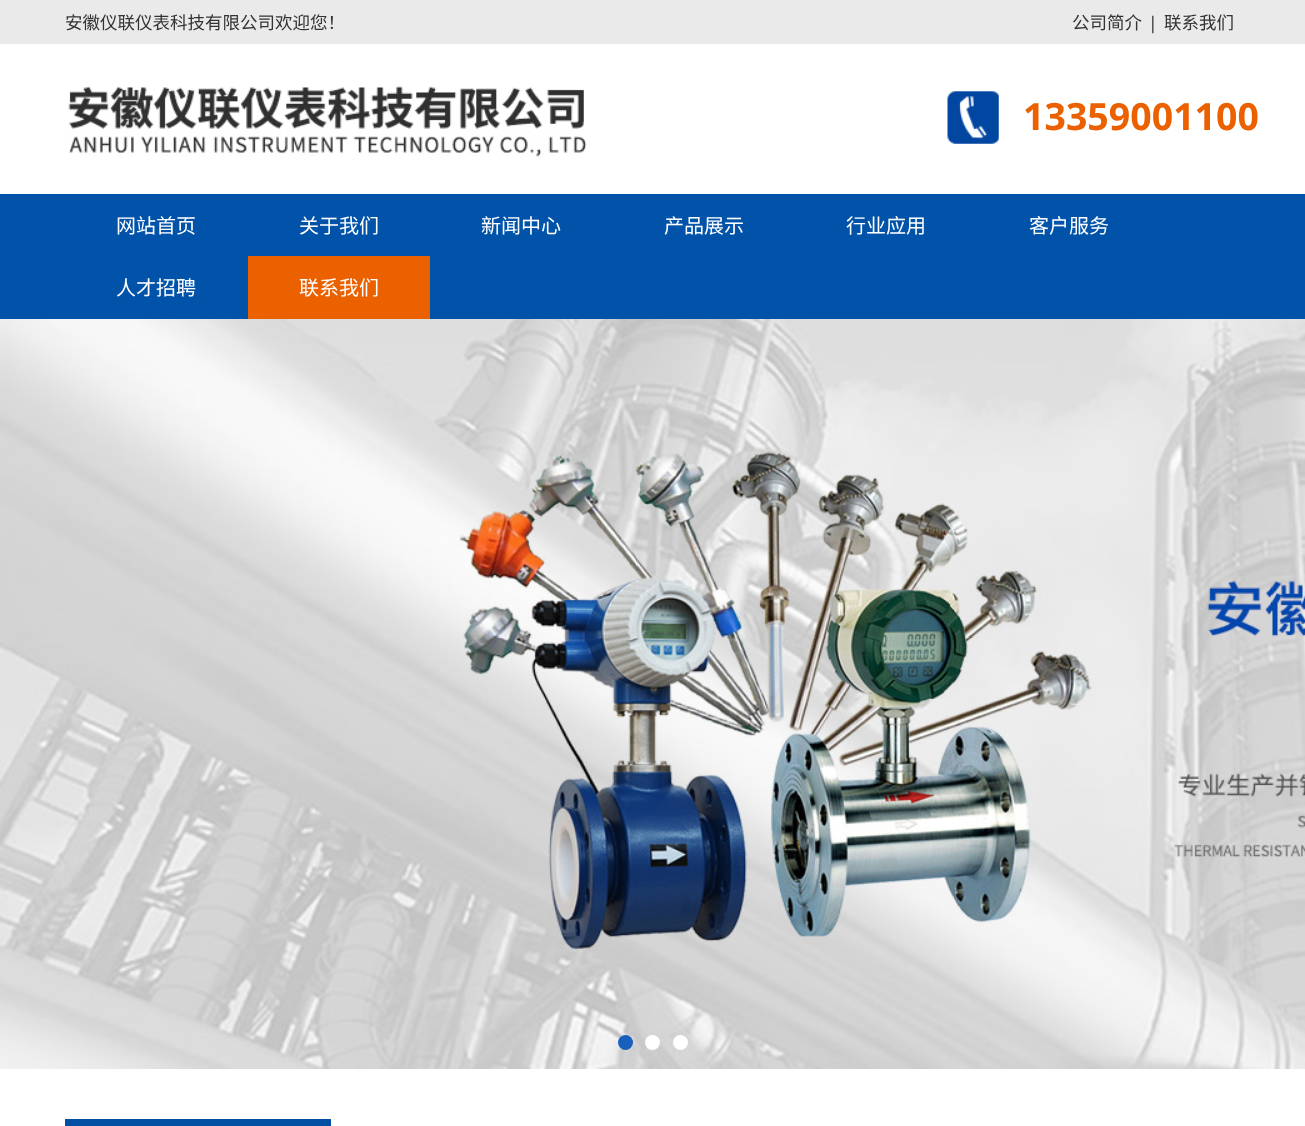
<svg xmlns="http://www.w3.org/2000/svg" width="1305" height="1126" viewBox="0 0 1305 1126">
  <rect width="100%" height="100%" fill="#ffffff"/>
  <rect x="0" y="0" width="1305" height="44" fill="#eaeaea"/>
  <text x="65" y="29" font-family="Noto Sans CJK SC" font-size="17.5" fill="#333333">安徽仪联仪表科技有限公司欢迎您！</text>
  <text x="1072" y="29" font-family="Noto Sans CJK SC" font-size="17.5" fill="#333333">公司简介</text>
  <text x="1148" y="29" font-family="Noto Sans" font-size="17.5" fill="#333333">|</text>
  <text x="1164" y="29" font-family="Noto Sans CJK SC" font-size="17.5" fill="#333333">联系我们</text>
  <image x="68" y="86" width="519" height="71" href="img1.png"/>
  <image x="947" y="91" width="52" height="53" href="img2.png"/>
  <text x="1023" y="130" font-family="Noto Sans" font-size="37.5" font-weight="bold" fill="#eb6100">13359001100</text>
  <rect x="0" y="194" width="1305" height="125" fill="#0053a9"/>
  <text x="116" y="233" font-family="Noto Sans CJK SC" font-size="20" fill="#ffffff">网站首页</text>
  <text x="299" y="233" font-family="Noto Sans CJK SC" font-size="20" fill="#ffffff">关于我们</text>
  <text x="481" y="233" font-family="Noto Sans CJK SC" font-size="20" fill="#ffffff">新闻中心</text>
  <text x="664" y="233" font-family="Noto Sans CJK SC" font-size="20" fill="#ffffff">产品展示</text>
  <text x="846" y="233" font-family="Noto Sans CJK SC" font-size="20" fill="#ffffff">行业应用</text>
  <text x="1029" y="233" font-family="Noto Sans CJK SC" font-size="20" fill="#ffffff">客户服务</text>
  <text x="116" y="295" font-family="Noto Sans CJK SC" font-size="20" fill="#ffffff">人才招聘</text>
  <rect x="248" y="256" width="182" height="63" fill="#eb6100"/>
  <text x="299" y="295" font-family="Noto Sans CJK SC" font-size="20" fill="#ffffff">联系我们</text>
  <image x="0" y="319" width="1305" height="750" href="img3.png"/>
  <circle cx="625.5" cy="1042.5" r="7.5" fill="#195fbc"/>
  <circle cx="652.5" cy="1042.5" r="7.5" fill="#ffffff"/>
  <circle cx="680.5" cy="1042.5" r="7.5" fill="#ffffff"/>
  <rect x="65" y="1119" width="266" height="7" fill="#014fa2"/>
</svg>
